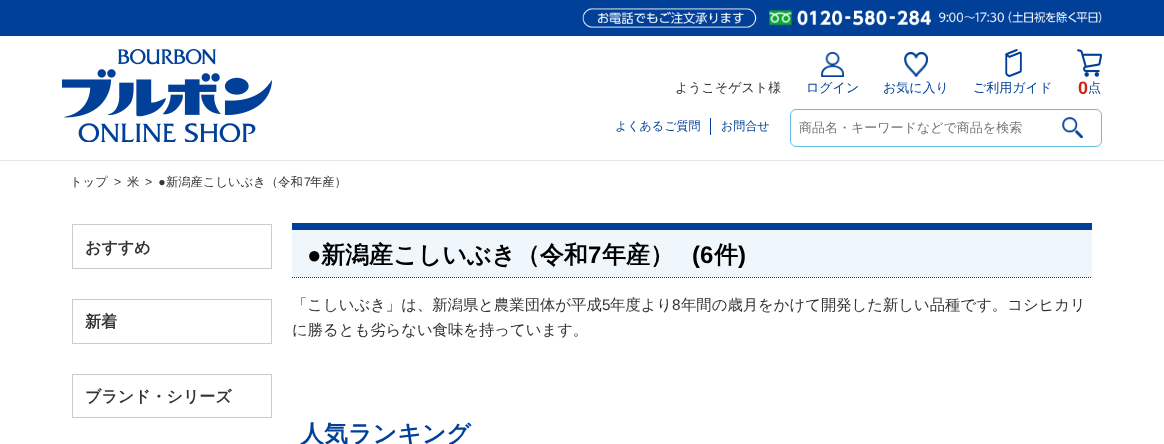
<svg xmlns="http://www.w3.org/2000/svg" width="1164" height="444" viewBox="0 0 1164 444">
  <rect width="100%" height="100%" fill="#ffffff"/>
  <rect x="0" y="0" width="1164" height="36" fill="#004098"/>
  <image x="582" y="8" width="520" height="20" href="img1.png"/>
  <image x="62" y="49" width="210" height="93" href="img2.png"/>
  <text x="675" y="92" font-family="WenQuanYi Zen Hei" font-size="13" font-weight="500" fill="#333333">ようこそゲスト様</text>
  <image x="821" y="52" width="23" height="25" href="img3.png"/>
  <text x="806" y="92" font-family="WenQuanYi Zen Hei" font-size="13" font-weight="500" fill="#004098">ログイン</text>
  <image x="904" y="52" width="24" height="25" href="img4.png"/>
  <text x="883" y="92" font-family="WenQuanYi Zen Hei" font-size="13" font-weight="500" fill="#004098">お気に入り</text>
  <image x="1004" y="49" width="18" height="28" href="img5.png"/>
  <text x="973" y="92" font-family="WenQuanYi Zen Hei" font-size="13" font-weight="500" fill="#004098">ご利用ガイド</text>
  <image x="1077" y="49" width="25" height="28" href="img6.png"/>
  <text x="1078" y="94" font-family="Liberation Sans" font-size="18" font-weight="bold" fill="#ce2414">0</text>
  <text x="1088" y="92" font-family="WenQuanYi Zen Hei" font-size="13" font-weight="500" fill="#004098">点</text>
  <text x="615" y="130" font-family="WenQuanYi Zen Hei" font-size="12" font-weight="500" fill="#004098">よくあるご質問</text>
  <rect x="710" y="118" width="1" height="17" fill="#004098"/>
  <text x="721" y="130" font-family="WenQuanYi Zen Hei" font-size="12" font-weight="500" fill="#004098">お問合せ</text>
  <rect x="790.5" y="109.5" width="311" height="37" rx="5.5" fill="none" stroke="#67bee7"/>
  <text x="799" y="132" font-family="WenQuanYi Zen Hei" font-size="13" font-weight="500" fill="#757575">商品名・キーワードなどで商品を検索</text>
  <image x="1062" y="117" width="21" height="21" href="img7.png"/>
  <rect x="0" y="160" width="1164" height="1" fill="#e5e5e5"/>
  <text x="70" y="186" font-family="WenQuanYi Zen Hei" font-size="12.3" font-weight="500" fill="#333333">トップ</text>
  <text x="114" y="186" font-family="Liberation Sans" font-size="12.3" fill="#333333">&gt;</text>
  <text x="127" y="186" font-family="WenQuanYi Zen Hei" font-size="12.3" font-weight="500" fill="#333333">米</text>
  <text x="145" y="186" font-family="Liberation Sans" font-size="12.3" fill="#333333">&gt; ●</text>
  <text x="166" y="186" font-family="WenQuanYi Zen Hei" font-size="12.3" font-weight="500" fill="#333333">新潟産こしいぶき（令和</text>
  <text x="304" y="186" font-family="Liberation Sans" font-size="12.3" fill="#333333">7</text>
  <text x="310" y="186" font-family="WenQuanYi Zen Hei" font-size="12.3" font-weight="500" fill="#333333">年産）</text>
  <rect x="72.5" y="224.5" width="199" height="44" fill="none" stroke="#cccccc"/>
  <text x="85" y="253" font-family="WenQuanYi Zen Hei" font-size="16" font-weight="bold" fill="#333333">おすすめ</text>
  <rect x="72.5" y="299.5" width="199" height="44" fill="none" stroke="#cccccc"/>
  <text x="85" y="327" font-family="WenQuanYi Zen Hei" font-size="16" font-weight="bold" fill="#333333">新着</text>
  <rect x="72.5" y="374.5" width="199" height="43" fill="none" stroke="#cccccc"/>
  <text x="85" y="402" font-family="WenQuanYi Zen Hei" font-size="16" font-weight="bold" fill="#333333">ブランド・シリーズ</text>
  <path d="M292 277.5H1092" fill="none" stroke="#004098" stroke-dasharray="1 1"/>
  <rect x="292" y="230" width="800" height="47" fill="#f0f7fc"/>
  <rect x="292" y="223" width="800" height="7" fill="#004098"/>
  <text x="307" y="263" font-family="Liberation Sans" font-size="24" font-weight="bold" fill="#000000">●</text>
  <text x="321" y="263" font-family="WenQuanYi Zen Hei" font-size="24" font-weight="bold" fill="#000000">新潟産こしいぶき（令和</text>
  <text x="588" y="263" font-family="Liberation Sans" font-size="24" font-weight="bold" fill="#000000">7</text>
  <text x="602" y="263" font-family="WenQuanYi Zen Hei" font-size="24" font-weight="bold" fill="#000000">年産）</text>
  <text x="692" y="263" font-family="Liberation Sans" font-size="24" font-weight="bold" fill="#000000">(6</text>
  <text x="714" y="263" font-family="WenQuanYi Zen Hei" font-size="24" font-weight="bold" fill="#000000">件</text>
  <text x="738" y="263" font-family="Liberation Sans" font-size="24" font-weight="bold" fill="#000000">)</text>
  <text x="292" y="310" font-family="WenQuanYi Zen Hei" font-size="15.35" font-weight="500" fill="#333333">「こしいぶき」は、新潟県と農業団体が平成</text>
  <text x="602" y="310" font-family="Liberation Sans" font-size="15.35" fill="#333333">5</text>
  <text x="610" y="310" font-family="WenQuanYi Zen Hei" font-size="15.35" font-weight="500" fill="#333333">年度より</text>
  <text x="672" y="310" font-family="Liberation Sans" font-size="15.35" fill="#333333">8</text>
  <text x="681" y="310" font-family="WenQuanYi Zen Hei" font-size="15.35" font-weight="500" fill="#333333">年間の歳月をかけて開発した新しい品種です。コシヒカリ</text>
  <text x="292" y="335" font-family="WenQuanYi Zen Hei" font-size="15.35" font-weight="500" fill="#333333">に勝るとも劣らない食味を持っています。</text>
  <text x="300" y="442" font-family="WenQuanYi Zen Hei" font-size="24" font-weight="bold" fill="#004098">人気ランキング</text>
</svg>
